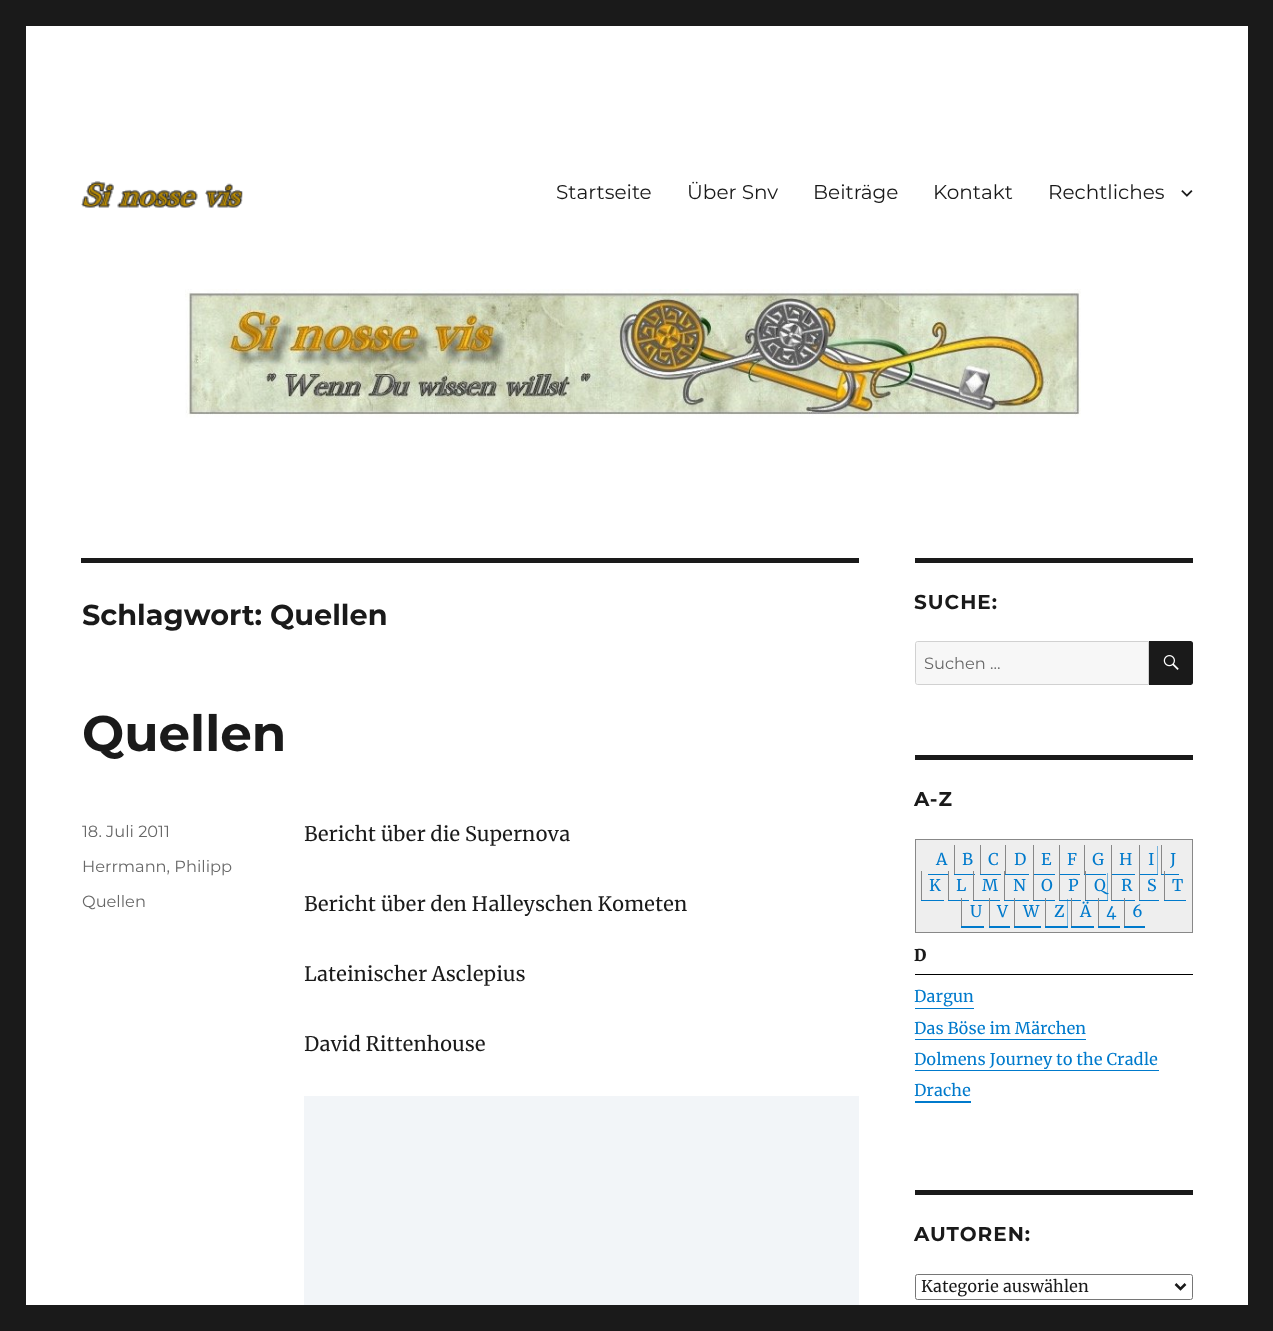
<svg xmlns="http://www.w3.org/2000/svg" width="1273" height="1331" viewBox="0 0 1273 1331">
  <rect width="100%" height="100%" fill="#1a1a1a"/>
  <rect x="26" y="26" width="1222" height="1279" fill="#ffffff"/>
  <image x="81" y="181" width="162" height="27" href="img1.png"/>
  <text x="556" y="199" font-family="'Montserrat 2'" font-size="20" font-weight="100" fill="#1a1a1a">Startseite</text>
  <text x="687" y="199" font-family="'Montserrat 2'" font-size="20" font-weight="100" fill="#1a1a1a">Über Snv</text>
  <text x="813" y="199" font-family="'Montserrat 2'" font-size="20" font-weight="100" fill="#1a1a1a">Beiträge</text>
  <text x="933" y="199" font-family="'Montserrat 2'" font-size="20" font-weight="100" fill="#1a1a1a">Kontakt</text>
  <text x="1048" y="199" font-family="'Montserrat 2'" font-size="20" font-weight="100" fill="#1a1a1a">Rechtliches</text>
  <image x="1181" y="190" width="12" height="7" href="img2.png"/>
  <image x="185" y="289" width="896" height="129" href="img3.png"/>
  <rect x="81" y="558" width="778" height="5" fill="#1a1a1a"/>
  <text x="82" y="625" font-family="Montserrat" font-size="28.75" font-weight="100" fill="#1a1a1a">Schlagwort: Quellen</text>
  <text x="82" y="751" font-family="Montserrat" font-size="50" font-weight="100" fill="#1a1a1a">Quellen</text>
  <text x="82" y="837" font-family="'Montserrat 2'" font-size="16.25" font-weight="100" fill="#686868">18. Juli 2011</text>
  <text x="82" y="872" font-family="'Montserrat 2'" font-size="16.25" font-weight="100" fill="#686868">Herrmann, Philipp</text>
  <text x="82" y="907" font-family="'Montserrat 2'" font-size="16.25" font-weight="100" fill="#686868">Quellen</text>
  <text x="304" y="841" font-family="Merriweather" font-size="20" fill="#1a1a1a">Bericht über die Supernova</text>
  <text x="304" y="911" font-family="Merriweather" font-size="20" fill="#1a1a1a">Bericht über den Halleyschen Kometen</text>
  <text x="304" y="981" font-family="Merriweather" font-size="20" fill="#1a1a1a">Lateinischer Asclepius</text>
  <text x="304" y="1051" font-family="Merriweather" font-size="20" fill="#1a1a1a">David Rittenhouse</text>
  <rect x="304" y="1096" width="555" height="209" fill="#f2f5f8"/>
  <rect x="915" y="558" width="278" height="5" fill="#1a1a1a"/>
  <text x="914" y="609" font-family="Montserrat" font-size="20" font-weight="100" letter-spacing="1" fill="#1a1a1a">SUCHE:</text>
  <path d="M917.5 641.5H1148.5V684.5H917.5C916.5 684.5 915.5 683.5 915.5 682.5V643.5C915.5 642.5 916.5 641.5 917.5 641.5Z" fill="#f7f7f7" stroke="#d1d1d1"/>
  <text x="924" y="669" font-family="'Montserrat 2'" font-size="16.25" font-weight="100" fill="#686868">Suchen …</text>
  <path d="M1149 641H1190.5C1192 641 1193 642 1193 643.5V682.5C1193 684 1192 685 1190.5 685H1149Z" fill="#1a1a1a"/>
  <image x="1163" y="655" width="16" height="15" href="img4.png"/>
  <rect x="915" y="755" width="278" height="5" fill="#1a1a1a"/>
  <text x="914" y="806" font-family="Montserrat" font-size="20" font-weight="100" letter-spacing="1" fill="#1a1a1a">A-Z</text>
  <rect x="915.5" y="839.5" width="277" height="93" fill="#eeeeee" stroke="#888888"/>
  <text x="936" y="865" font-family="Merriweather" font-size="16.25" fill="#007acc">A</text>
  <path d="M928 874V875H949V846V874Z" fill="#007acc"/>
  <text x="962" y="865" font-family="Merriweather" font-size="16.25" fill="#007acc">B</text>
  <rect x="954" y="874" width="21" height="1" fill="#007acc"/>
  <rect x="954" y="845" width="1" height="29" fill="#888888"/>
  <text x="988" y="865" font-family="Merriweather" font-size="16.25" fill="#007acc">C</text>
  <rect x="980" y="874" width="21" height="1" fill="#007acc"/>
  <rect x="980" y="845" width="1" height="29" fill="#888888"/>
  <text x="1014" y="865" font-family="Merriweather" font-size="16.25" fill="#007acc">D</text>
  <path d="M1005 874V875H1029V846V874Z" fill="#007acc"/>
  <rect x="1005" y="845" width="1" height="29" fill="#888888"/>
  <text x="1041" y="865" font-family="Merriweather" font-size="16.25" fill="#007acc">E</text>
  <rect x="1033" y="874" width="22" height="1" fill="#007acc"/>
  <rect x="1033" y="845" width="1" height="55" fill="#888888"/>
  <text x="1067" y="865" font-family="Merriweather" font-size="16.25" fill="#007acc">F</text>
  <rect x="1059" y="874" width="21" height="1" fill="#007acc"/>
  <rect x="1059" y="845" width="1" height="55" fill="#888888"/>
  <text x="1092" y="865" font-family="Merriweather" font-size="16.25" fill="#007acc">G</text>
  <rect x="1084" y="874" width="22" height="1" fill="#007acc"/>
  <rect x="1084" y="845" width="1" height="29" fill="#888888"/>
  <text x="1119" y="865" font-family="Merriweather" font-size="16.25" fill="#007acc">H</text>
  <path d="M1111 846V875H1135V874H1111Z" fill="#007acc"/>
  <rect x="1111" y="845" width="1" height="55" fill="#888888"/>
  <path d="M1139 874V875H1158V846H1157.5V874Z" fill="#007acc"/>
  <text x="1148" y="865" font-family="Merriweather" font-size="16.25" fill="#007acc">I</text>
  <rect x="1139" y="845" width="1" height="55" fill="#888888"/>
  <text x="1170" y="865" font-family="Merriweather" font-size="16.25" fill="#007acc">J</text>
  <path d="M1161 846V875H1179V846V874H1161Z" fill="#007acc"/>
  <rect x="1161" y="845" width="1" height="29" fill="#888888"/>
  <text x="929" y="891" font-family="Merriweather" font-size="16.25" fill="#007acc">K</text>
  <path d="M921 873V901H944V873V900H921Z" fill="#007acc"/>
  <rect x="921" y="871" width="1" height="29" fill="#888888"/>
  <text x="956" y="891" font-family="Merriweather" font-size="16.25" fill="#007acc">L</text>
  <path d="M948 900V901H969V873V900Z" fill="#007acc"/>
  <rect x="948" y="871" width="1" height="29" fill="#888888"/>
  <text x="982" y="891" font-family="Merriweather" font-size="16.25" fill="#007acc">M</text>
  <rect x="973" y="900" width="27" height="1" fill="#007acc"/>
  <rect x="973" y="871" width="1" height="29" fill="#888888"/>
  <text x="1013" y="891" font-family="Merriweather" font-size="16.25" fill="#007acc">N</text>
  <path d="M1004 900V901H1029V873V900Z" fill="#007acc"/>
  <rect x="1004" y="871" width="1" height="29" fill="#888888"/>
  <text x="1041" y="891" font-family="Merriweather" font-size="16.25" fill="#007acc">O</text>
  <rect x="1033" y="900" width="22" height="1" fill="#007acc"/>
  <text x="1068" y="891" font-family="Merriweather" font-size="16.25" fill="#007acc">P</text>
  <rect x="1059" y="900" width="22" height="1" fill="#007acc"/>
  <path d="M1085 900V901H1108V873H1107.5V900Z" fill="#007acc"/>
  <text x="1094" y="891" font-family="Merriweather" font-size="16.25" fill="#007acc">Q</text>
  <rect x="1085" y="871" width="1" height="29" fill="#888888"/>
  <text x="1121" y="891" font-family="Merriweather" font-size="16.25" fill="#007acc">R</text>
  <path d="M1111 873V901H1135V900H1111Z" fill="#007acc"/>
  <text x="1147" y="891" font-family="Merriweather" font-size="16.25" fill="#007acc">S</text>
  <path d="M1139 900V901H1159V873V900Z" fill="#007acc"/>
  <text x="1172" y="891" font-family="Merriweather" font-size="16.25" fill="#007acc">T</text>
  <rect x="1164" y="900" width="22" height="1" fill="#007acc"/>
  <rect x="1164" y="871" width="1" height="29" fill="#888888"/>
  <text x="970" y="917" font-family="Merriweather" font-size="16.25" fill="#007acc">U</text>
  <path d="M961 899V928H984V899V926H961Z" fill="#007acc"/>
  <rect x="961" y="898" width="1" height="28" fill="#888888"/>
  <text x="997" y="917" font-family="Merriweather" font-size="16.25" fill="#007acc">V</text>
  <rect x="989" y="926" width="21" height="2" fill="#007acc"/>
  <rect x="989" y="898" width="1" height="28" fill="#888888"/>
  <text x="1023" y="917" font-family="Merriweather" font-size="16.25" fill="#007acc">W</text>
  <rect x="1014" y="926" width="27" height="2" fill="#007acc"/>
  <rect x="1014" y="898" width="1" height="28" fill="#888888"/>
  <path d="M1045 926V928H1068V899H1067.5V926Z" fill="#007acc"/>
  <text x="1054" y="917" font-family="Merriweather" font-size="16.25" fill="#007acc">Z</text>
  <rect x="1045" y="898" width="1" height="28" fill="#888888"/>
  <text x="1080" y="917" font-family="Merriweather" font-size="16.25" fill="#007acc">Ä</text>
  <path d="M1071 899V928H1094V899V926H1071Z" fill="#007acc"/>
  <rect x="1071" y="898" width="1" height="28" fill="#888888"/>
  <text x="1106" y="917" font-family="Merriweather" font-size="16.25" fill="#007acc">4</text>
  <rect x="1098" y="926" width="22" height="2" fill="#007acc"/>
  <rect x="1098" y="898" width="1" height="28" fill="#888888"/>
  <text x="1132" y="917" font-family="Merriweather" font-size="16.25" fill="#007acc">6</text>
  <rect x="1124" y="926" width="21" height="2" fill="#007acc"/>
  <rect x="1124" y="898" width="1" height="28" fill="#888888"/>
  <rect x="915" y="974" width="278" height="1" fill="#000000"/>
  <text x="914" y="961" font-family="Merriweather" font-size="16.25" font-weight="900" letter-spacing="2" fill="#1a1a1a">D</text>
  <text x="914" y="1002" font-family="Merriweather" font-size="16.25" fill="#007acc">Dargun</text>
  <path d="M915 1008V1009H974V988V1008Z" fill="#007acc"/>
  <text x="914" y="1034" font-family="Merriweather" font-size="16.25" fill="#007acc">Das Böse im Märchen</text>
  <rect x="915" y="1039" width="171" height="1" fill="#007acc"/>
  <text x="914" y="1065" font-family="Merriweather" font-size="16.25" fill="#007acc">Dolmens Journey to the Cradle</text>
  <path d="M915 1070V1071H1159V1050V1070Z" fill="#007acc"/>
  <text x="914" y="1096" font-family="Merriweather" font-size="16.25" fill="#007acc">Drache</text>
  <rect x="915" y="1101" width="56" height="2" fill="#007acc"/>
  <rect x="915" y="1190" width="278" height="5" fill="#1a1a1a"/>
  <text x="914" y="1241" font-family="Montserrat" font-size="20" font-weight="100" letter-spacing="1" fill="#1a1a1a">AUTOREN:</text>
  <rect x="915.5" y="1274.5" width="277" height="25" rx="2" fill="none" stroke="#767676"/>
  <path d="M1175.5 1284L1180.5 1289L1185.5 1284" fill="none" stroke="#1a1a1a" stroke-width="2.5"/>
  <text x="921" y="1292" font-family="Merriweather" font-size="16.25" fill="#1a1a1a">Kategorie auswählen</text>
</svg>
